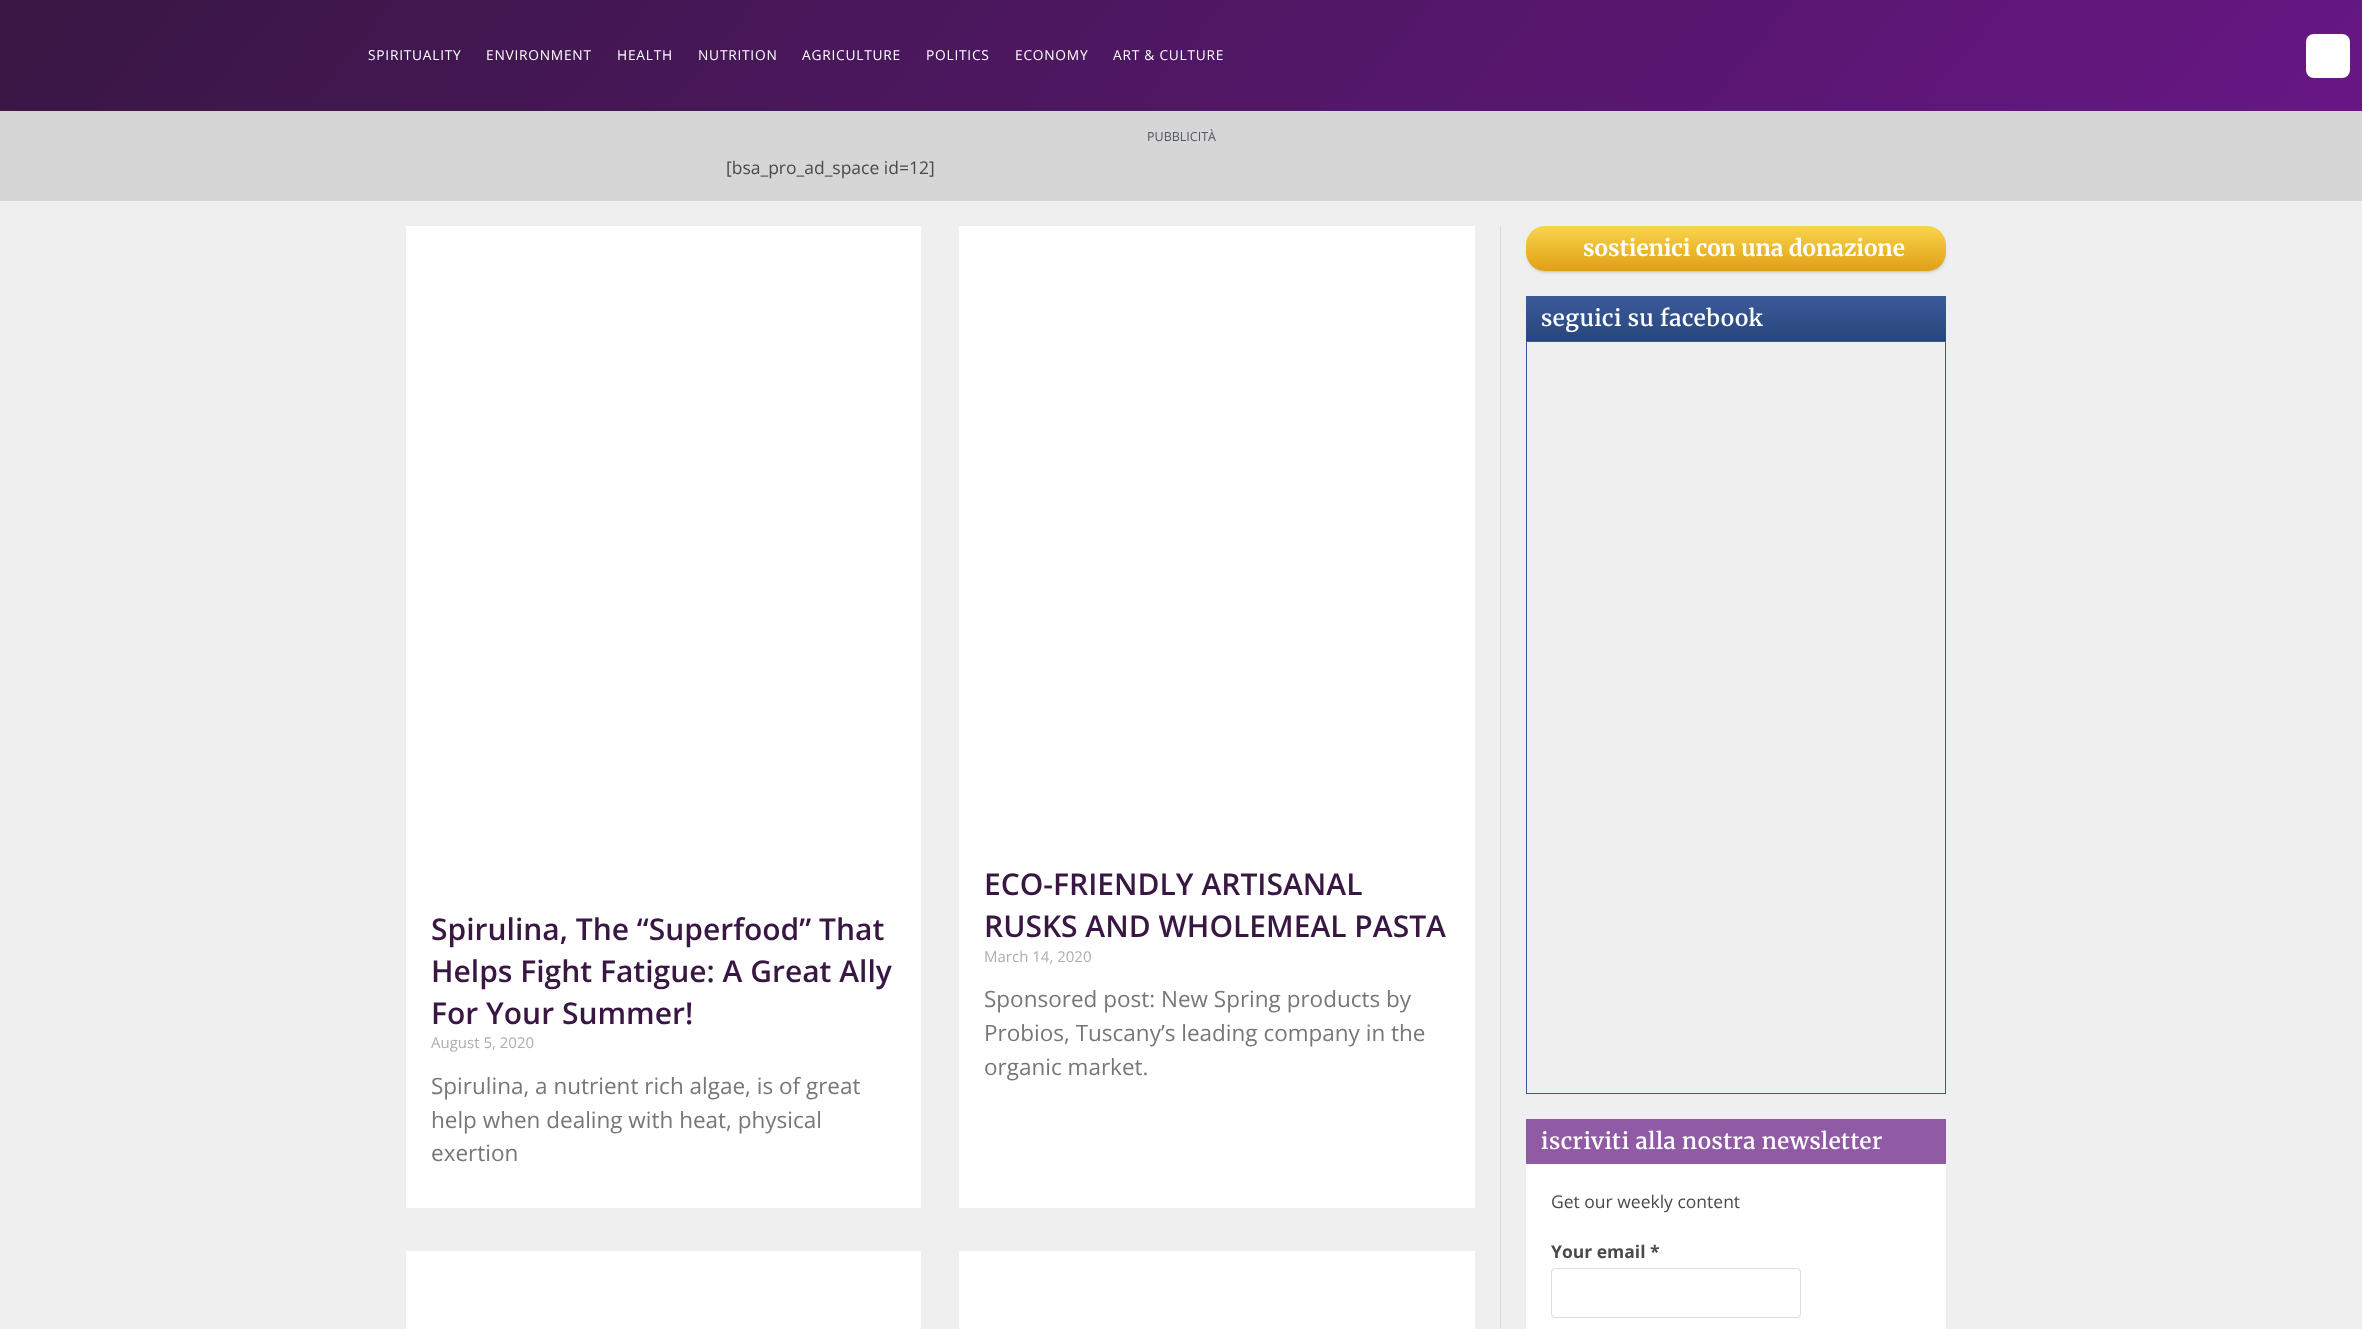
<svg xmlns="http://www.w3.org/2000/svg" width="2362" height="1329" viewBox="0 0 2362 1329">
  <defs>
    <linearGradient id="g1" gradientUnits="userSpaceOnUse" x1="460" y1="-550" x2="1902" y2="660"><stop offset="0" stop-color="#381743"/><stop offset="1" stop-color="#671784"/></linearGradient>
    <filter id="blur1" x="-50%" y="-200%" width="200%" height="500%"><feGaussianBlur stdDeviation="2.5"/></filter>
    <linearGradient id="g2" gradientUnits="userSpaceOnUse" x1="1736" y1="226" x2="1736" y2="271"><stop offset="0" stop-color="#fad44d"/><stop offset="1" stop-color="#e0a014"/></linearGradient>
    <linearGradient id="g3" gradientUnits="userSpaceOnUse" x1="1736" y1="296" x2="1736" y2="341"><stop offset="0" stop-color="#3c5a99"/><stop offset="1" stop-color="#27467c"/></linearGradient>
  </defs>
  <rect width="100%" height="100%" fill="#d6d6d6"/>
  <rect x="0" y="0" width="2362" height="111" fill="url(#g1)"/>
  <text x="368" y="60" font-family="Open Sans" font-size="13.75" letter-spacing="0.75" fill="#ffffff">SPIRITUALITY</text>
  <text x="486" y="60" font-family="Open Sans" font-size="13.75" letter-spacing="0.75" fill="#ffffff">ENVIRONMENT</text>
  <text x="617" y="60" font-family="Open Sans" font-size="13.75" letter-spacing="0.75" fill="#ffffff">HEALTH</text>
  <text x="698" y="60" font-family="Open Sans" font-size="13.75" letter-spacing="0.75" fill="#ffffff">NUTRITION</text>
  <text x="802" y="60" font-family="Open Sans" font-size="13.75" letter-spacing="0.75" fill="#ffffff">AGRICULTURE</text>
  <text x="926" y="60" font-family="Open Sans" font-size="13.75" letter-spacing="0.75" fill="#ffffff">POLITICS</text>
  <text x="1015" y="60" font-family="Open Sans" font-size="13.75" letter-spacing="0.75" fill="#ffffff">ECONOMY</text>
  <text x="1113" y="60" font-family="Open Sans" font-size="13.75" letter-spacing="0.75" fill="#ffffff">ART &amp; CULTURE</text>
  <rect x="2306" y="34" width="44" height="44" rx="8" fill="#ffffff"/>
  <text x="1147" y="141" font-family="Open Sans" font-size="12.5" fill="#54595f">PUBBLICITÀ</text>
  <text x="726" y="174" font-family="Open Sans" font-size="17.5" fill="#4a4a4a">[bsa_pro_ad_space id=12]</text>
  <rect x="0" y="201" width="2362" height="1128" fill="#efefef"/>
  <rect x="1500" y="226" width="1" height="1103" fill="#dcdcdc"/>
  <rect x="406" y="226" width="515" height="982" fill="#ffffff"/>
  <text x="431" y="940" font-family="Open Sans" font-size="30" font-weight="600" fill="#381743">Spirulina, The “Superfood” That</text>
  <text x="431" y="982" font-family="Open Sans" font-size="30" font-weight="600" fill="#381743">Helps Fight Fatigue: A Great Ally</text>
  <text x="431" y="1024" font-family="Open Sans" font-size="30" font-weight="600" fill="#381743">For Your Summer!</text>
  <text x="431" y="1048" font-family="Open Sans" font-size="15" fill="#adadad">August 5, 2020</text>
  <text x="431" y="1094" font-family="Open Sans" font-size="22.5" fill="#777777">Spirulina, a nutrient rich algae, is of great</text>
  <text x="431" y="1128" font-family="Open Sans" font-size="22.5" fill="#777777">help when dealing with heat, physical</text>
  <text x="431" y="1161" font-family="Open Sans" font-size="22.5" fill="#777777">exertion</text>
  <rect x="959" y="226" width="516" height="982" fill="#ffffff"/>
  <text x="984" y="895" font-family="Open Sans" font-size="30" font-weight="600" fill="#381743">ECO-FRIENDLY ARTISANAL</text>
  <text x="984" y="937" font-family="Open Sans" font-size="30" font-weight="600" fill="#381743">RUSKS AND WHOLEMEAL PASTA</text>
  <text x="984" y="962" font-family="Open Sans" font-size="15" fill="#adadad">March 14, 2020</text>
  <text x="984" y="1007" font-family="Open Sans" font-size="22.5" fill="#777777">Sponsored post: New Spring products by</text>
  <text x="984" y="1041" font-family="Open Sans" font-size="22.5" fill="#777777">Probios, Tuscany’s leading company in the</text>
  <text x="984" y="1075" font-family="Open Sans" font-size="22.5" fill="#777777">organic market.</text>
  <rect x="406" y="1251" width="515" height="78" fill="#ffffff"/>
  <rect x="959" y="1251" width="516" height="78" fill="#ffffff"/>
  <rect x="1530" y="233" width="413" height="37" rx="15" fill="#000000" fill-opacity="0.5" filter="url(#blur1)"/>
  <rect x="1526" y="226" width="420" height="45" rx="19" fill="url(#g2)"/>
  <text x="1583" y="256" font-family="Merriweather" font-size="22.5" font-weight="bold" fill="#ffffff">sostienici con una donazione</text>
  <rect x="1526" y="296" width="420" height="45" fill="url(#g3)"/>
  <text x="1541" y="326" font-family="Merriweather" font-size="22.5" font-weight="600" letter-spacing="0.5" fill="#ffffff">seguici su facebook</text>
  <rect x="1526.5" y="341.5" width="419" height="752" fill="none" stroke="#3c5a99"/>
  <rect x="1526" y="1119" width="420" height="45" fill="#915aa5"/>
  <text x="1541" y="1149" font-family="Merriweather" font-size="22.5" font-weight="600" letter-spacing="0.5" fill="#ffffff">iscriviti alla nostra newsletter</text>
  <rect x="1526" y="1164" width="420" height="165" fill="#ffffff"/>
  <text x="1551" y="1208" font-family="Open Sans" font-size="17.5" fill="#4a4a4a">Get our weekly content</text>
  <text x="1551" y="1258" font-family="Open Sans" font-size="17.5" font-weight="bold" fill="#4a4a4a">Your email *</text>
  <rect x="1551.5" y="1268.5" width="249" height="49" rx="3.5" fill="none" stroke="#dddddd"/>
</svg>
